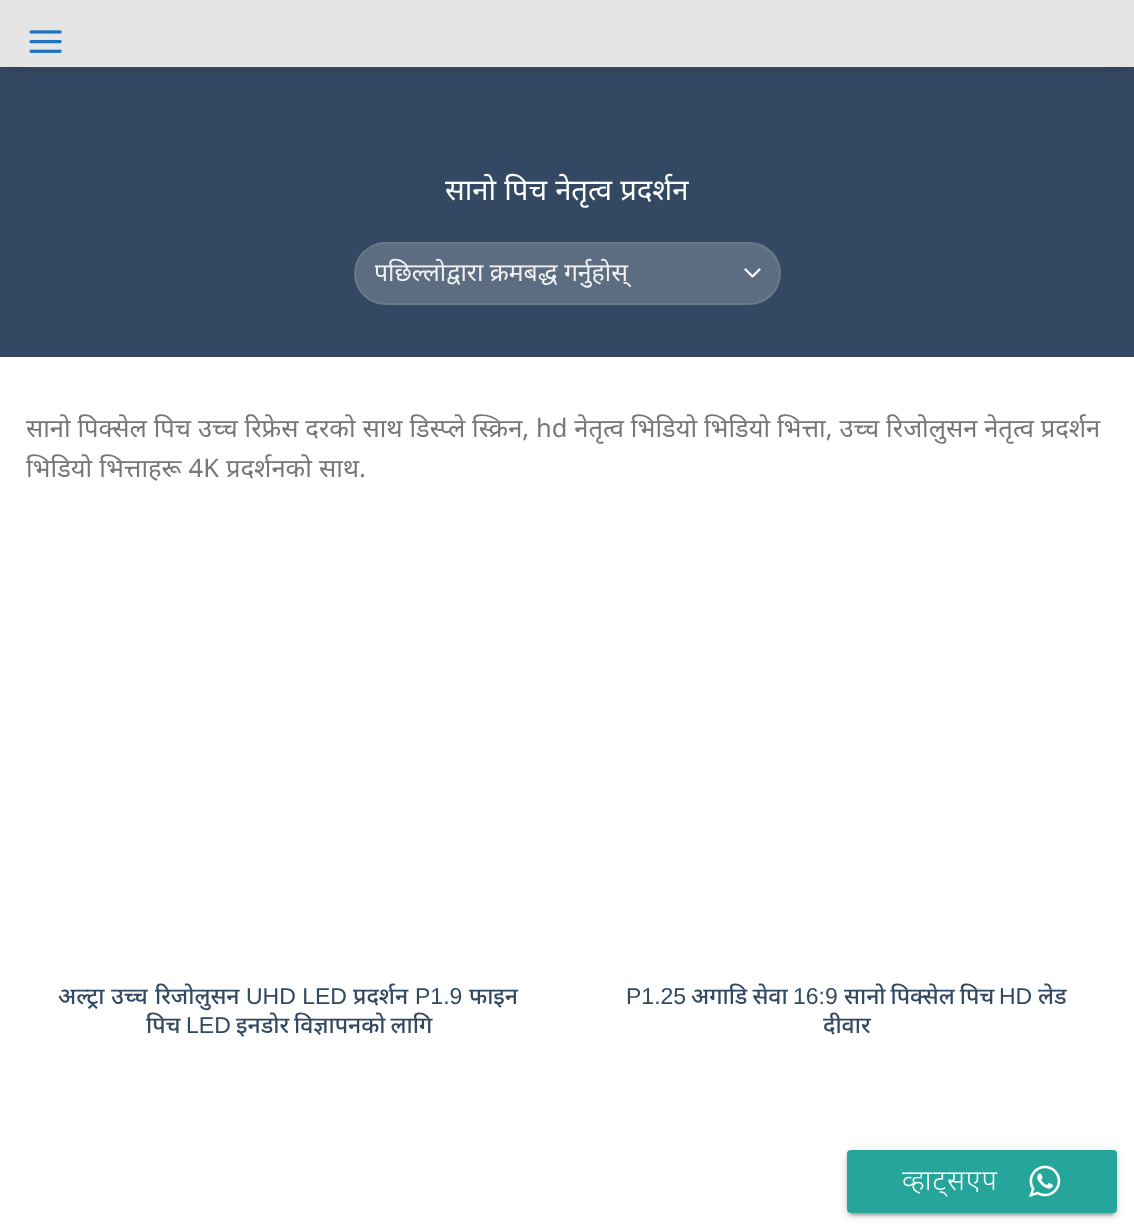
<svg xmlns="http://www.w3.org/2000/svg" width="1134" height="1229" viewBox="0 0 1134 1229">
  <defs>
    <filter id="blur1" x="-50%" y="-200%" width="200%" height="500%"><feGaussianBlur stdDeviation="9"/></filter>
    <clipPath id="clip1"><rect x="375" y="254" width="369" height="38"/></clipPath>
    <filter id="blur2" x="-50%" y="-200%" width="200%" height="500%"><feGaussianBlur stdDeviation="1"/></filter>
    <filter id="blur3" x="-50%" y="-200%" width="200%" height="500%"><feGaussianBlur stdDeviation="4.5"/></filter>
    <filter id="blur4" x="-50%" y="-200%" width="200%" height="500%"><feGaussianBlur stdDeviation="2"/></filter>
  </defs>
  <rect width="100%" height="100%" fill="#ffffff"/>
  <rect x="0" y="67" width="1134" height="290" fill="#334863"/>
  <rect x="2" y="2" width="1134" height="66" fill="#000000" fill-opacity="0.15" filter="url(#blur1)"/>
  <rect x="0" y="0" width="1134" height="67" fill="#e5e5e5"/>
  <image x="29" y="30" width="33" height="23" href="img1.png"/>
  <rect x="26" y="67" width="1082" height="2" fill="#36485e"/>
  <text x="445" y="200" word-spacing="0.5" font-family="Noto Sans" font-size="29.25" fill="#ffffff">सानो पिच नेतृत्व प्रदर्शन</text>
  <rect x="354" y="242" width="427" height="63" rx="31.5" fill="#5c6d82"/>
  <path d="M745.5 269.5L752.5 276.5L759.5 269.5" fill="none" stroke="#ffffff" stroke-width="2.3" stroke-linecap="round" stroke-linejoin="round"/>
  <rect x="355" y="243" width="425" height="61" rx="30.5" fill="none" stroke="#ffffff" stroke-opacity="0.09" stroke-width="2"/>
  <g clip-path="url(#clip1)">
    <text x="374" y="281" font-family="Noto Sans" font-size="24.75" fill="#f1f1f1">पछिल्लोद्वारा क्रमबद्ध गर्नुहोस्</text>
  </g>
  <text x="26" y="437" word-spacing="0.25" font-family="Noto Sans" font-size="25.5" fill="#777777">सानो पिक्सेल पिच उच्च रिफ्रेस दरको साथ डिस्प्ले स्क्रिन, hd नेतृत्व भिडियो भिडियो भित्ता, उच्च रिजोलुसन नेतृत्व प्रदर्शन</text>
  <text x="26" y="477" word-spacing="0.5" font-family="Noto Sans" font-size="25.5" fill="#777777">भिडियो भित्ताहरू 4K प्रदर्शनको साथ.</text>
  <text x="58" y="1004" font-family="Noto Sans" font-size="23" font-weight="500" fill="#334862">अल्ट्रा</text>
  <text x="111" y="1004" font-family="Noto Sans" font-size="23" font-weight="500" fill="#334862">उच्च</text>
  <text x="155" y="1004" font-family="Noto Sans" font-size="23" font-weight="500" fill="#334862">रिजोलुसन</text>
  <text x="246" y="1004" font-family="Liberation Sans" font-size="23" fill="#334862">UHD LED</text>
  <text x="353" y="1004" font-family="Noto Sans" font-size="23" font-weight="500" fill="#334862">प्रदर्शन</text>
  <text x="415" y="1004" font-family="Liberation Sans" font-size="23" fill="#334862">P1.9</text>
  <text x="469" y="1004" font-family="Noto Sans" font-size="23" font-weight="500" fill="#334862">फाइन</text>
  <text x="146" y="1033" font-family="Noto Sans" font-size="23" font-weight="500" fill="#334862">पिच</text>
  <text x="186" y="1033" font-family="Liberation Sans" font-size="23" fill="#334862">LED</text>
  <text x="236" y="1033" word-spacing="-1" font-family="Noto Sans" font-size="23" font-weight="500" fill="#334862">इनडोर विज्ञापनको लागि</text>
  <text x="626" y="1004" font-family="Liberation Sans" font-size="23" fill="#334862">P1.25</text>
  <text x="691" y="1004" word-spacing="-1" font-family="Noto Sans" font-size="23" font-weight="500" fill="#334862">अगाडि सेवा</text>
  <text x="793" y="1004" font-family="Liberation Sans" font-size="23" fill="#334862">16:9</text>
  <text x="844" y="1004" word-spacing="-1" font-family="Noto Sans" font-size="23" font-weight="500" fill="#334862">सानो पिक्सेल पिच</text>
  <text x="999" y="1004" font-family="Liberation Sans" font-size="23" fill="#334862">HD</text>
  <text x="1038" y="1004" font-family="Noto Sans" font-size="23" font-weight="500" fill="#334862">लेड</text>
  <text x="823" y="1033" font-family="Noto Sans" font-size="23" font-weight="500" fill="#334862">दीवार</text>
  <rect x="851" y="1159" width="262" height="56" fill="#000000" fill-opacity="0.2" filter="url(#blur2)"/>
  <rect x="847" y="1152" width="270" height="63" rx="4" fill="#000000" fill-opacity="0.12" filter="url(#blur3)"/>
  <rect x="847" y="1153" width="270" height="63" rx="4" fill="#000000" fill-opacity="0.14" filter="url(#blur4)"/>
  <rect x="847" y="1150" width="270" height="63" rx="4" fill="#26a69a"/>
  <text x="902" y="1190" font-family="Noto Sans" font-size="28" font-weight="300" letter-spacing="0.9" fill="#ffffff">व्हाट्सएप</text>
  <image x="1029" y="1165" width="32" height="32" href="img2.png"/>
</svg>
